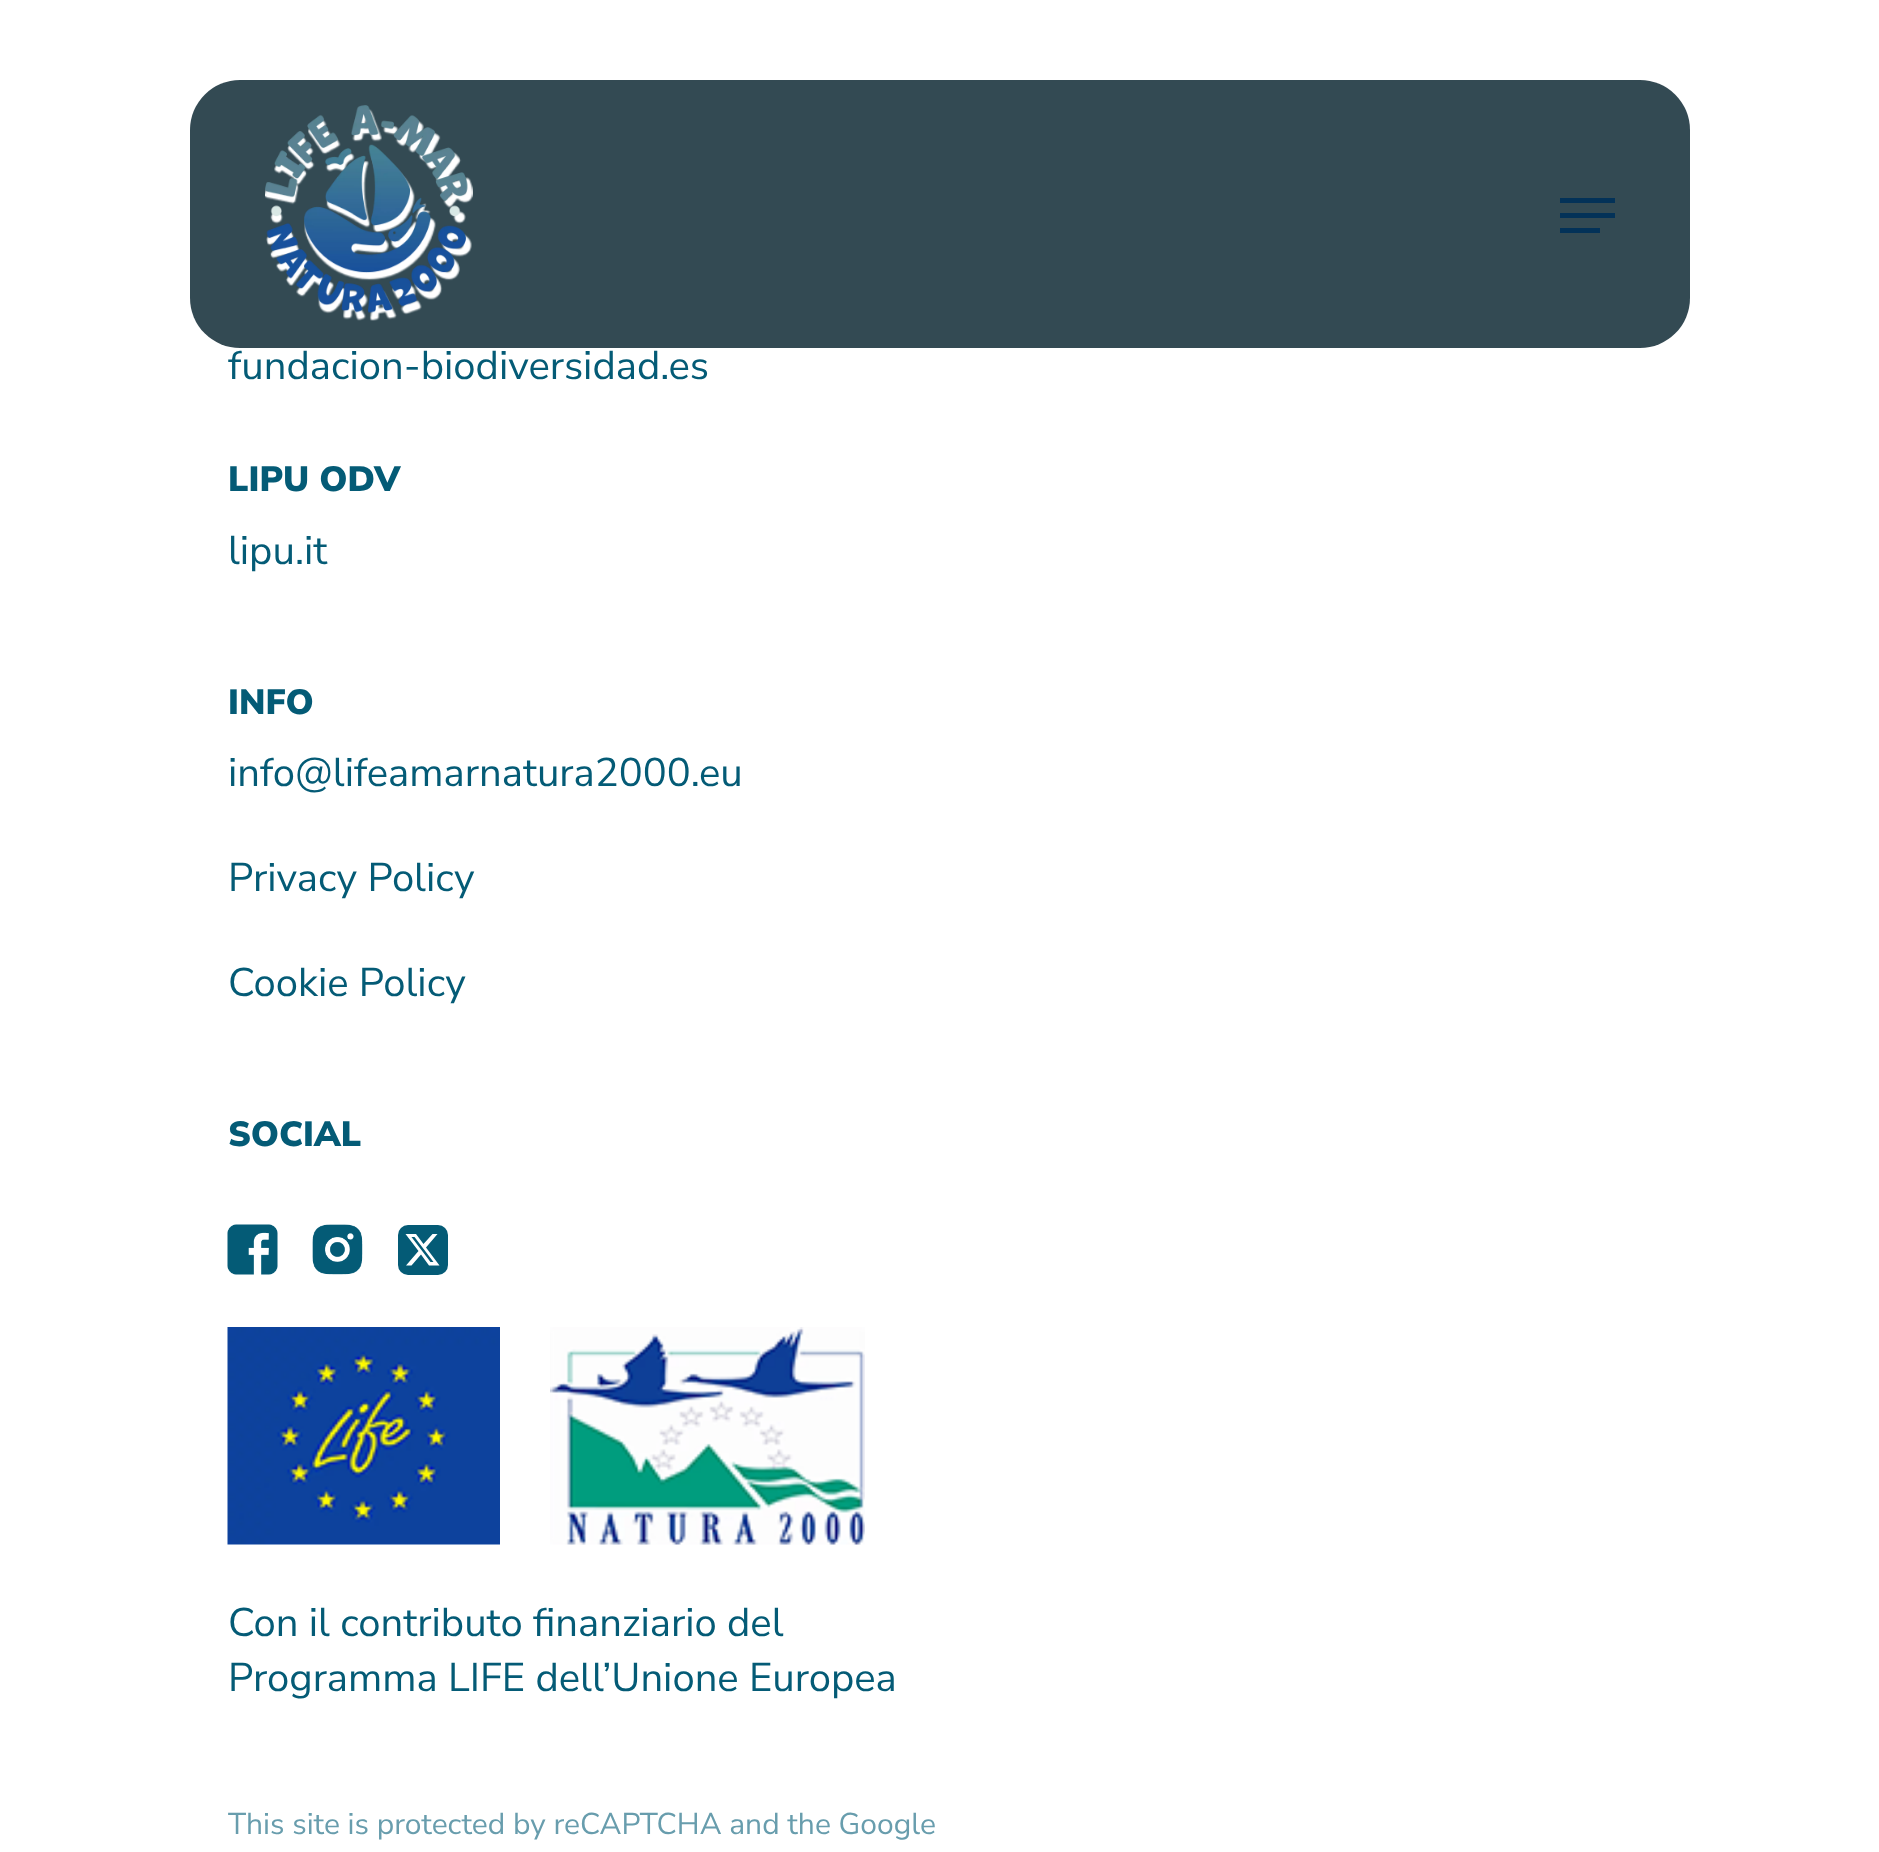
<svg xmlns="http://www.w3.org/2000/svg" width="1879" height="1852" viewBox="0 0 1879 1852">
  <rect width="100%" height="100%" fill="#ffffff"/>
  <rect x="190" y="80" width="1500" height="268" rx="50" fill="#001d28" fill-opacity="0.8"/>
  <image x="265" y="109" width="208" height="212" href="img1.png"/>
  <image x="265" y="105" width="203" height="208" href="img2.png"/>
  <rect x="1560" y="198" width="55" height="5" fill="#033258"/>
  <rect x="1560" y="228" width="40" height="5" fill="#033258"/>
  <rect x="1560" y="213" width="55" height="5" fill="#033258"/>
  <text x="228" y="379" font-family="Nunito Sans" font-size="40" fill="#045b76">fundacion-biodiversidad.es</text>
  <text x="228" y="491" font-family="Nunito Sans" font-size="35" font-weight="900" fill="#045b76">LIPU ODV</text>
  <text x="228" y="564" font-family="Nunito Sans" font-size="40" fill="#045b76">lipu.it</text>
  <text x="228" y="714" font-family="Nunito Sans" font-size="35" font-weight="900" fill="#045b76">INFO</text>
  <text x="228" y="786" font-family="Nunito Sans" font-size="40" fill="#045b76">info@lifeamarnatura2000.eu</text>
  <text x="228" y="891" font-family="Nunito Sans" font-size="40" fill="#045b76">Privacy Policy</text>
  <text x="228" y="996" font-family="Nunito Sans" font-size="40" fill="#045b76">Cookie Policy</text>
  <text x="228" y="1146" font-family="Nunito Sans" font-size="35" font-weight="900" fill="#045b76">SOCIAL</text>
  <image x="227" y="1224" width="51" height="51" href="img3.png"/>
  <image x="312" y="1224" width="51" height="51" href="img4.png"/>
  <rect x="398" y="1225" width="50" height="50" rx="10" fill="#045b76"/>
  <path d="M432.5 1234H437.5L426 1247.5L439.5 1265.5H429L421 1254.5L411.5 1265.5H406L418.5 1251L405.5 1234H416L423.5 1244ZM430.5 1262H433.5L414.5 1237H411.5Z" fill="#ffffff"/>
  <image x="227" y="1327" width="273" height="218" href="img5.png"/>
  <image x="550" y="1327" width="315" height="218" href="img6.png"/>
  <text x="228" y="1636" font-family="Nunito Sans" font-size="40" fill="#045b76">Con il contributo finanziario del</text>
  <text x="228" y="1691" font-family="Nunito Sans" font-size="40" fill="#045b76">Programma LIFE dell’Unione Europea</text>
  <text x="228" y="1834" font-family="Nunito Sans" font-size="30" fill="#689dad">This site is protected by reCAPTCHA and the Google</text>
</svg>
